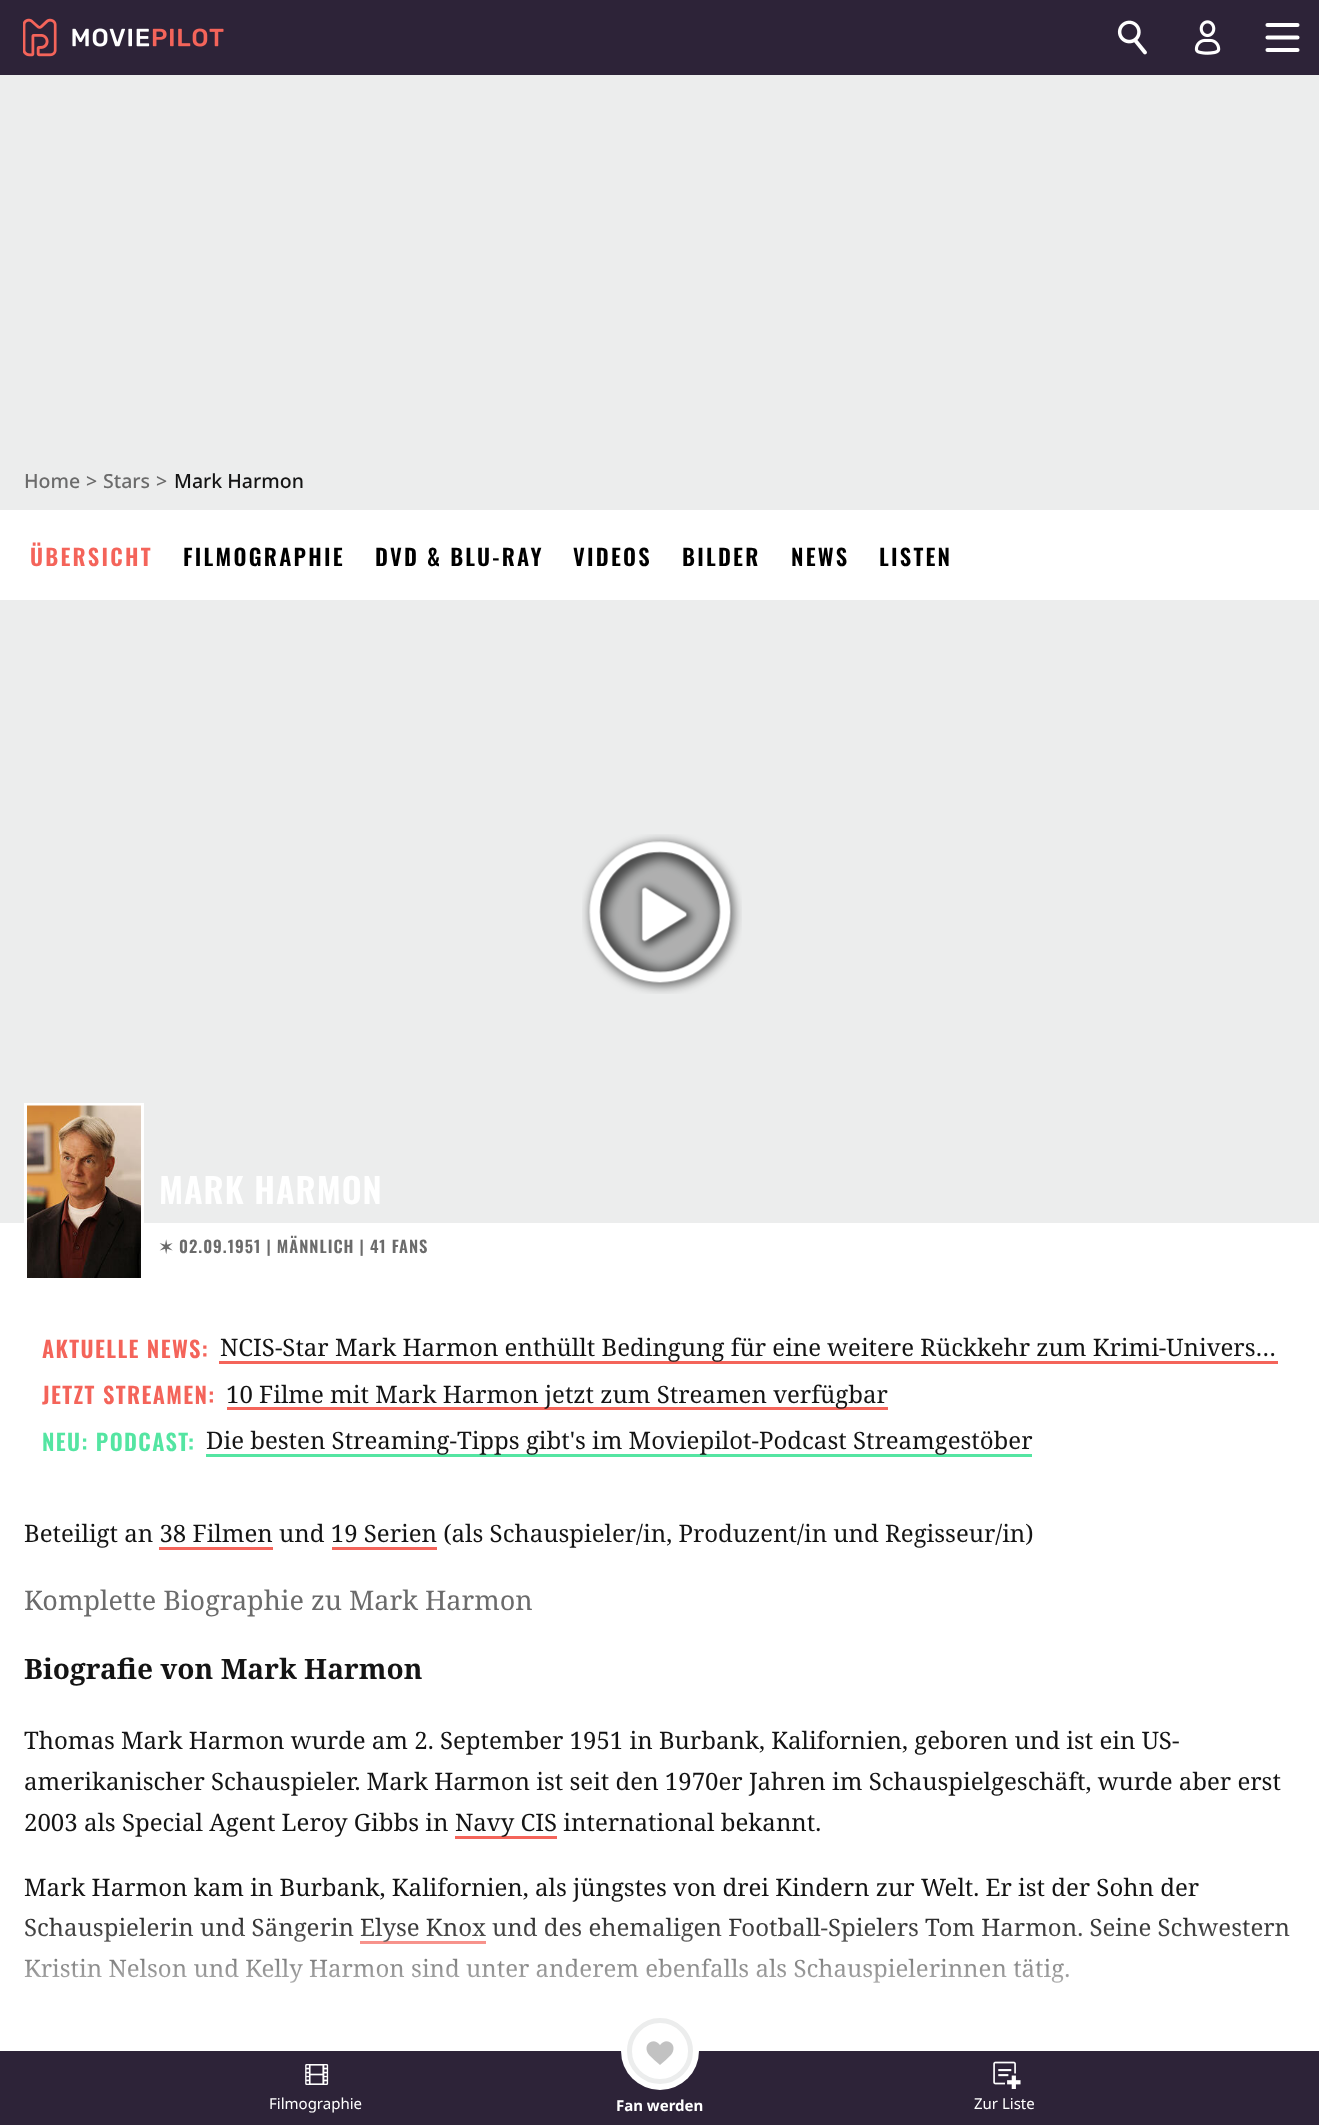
<svg xmlns="http://www.w3.org/2000/svg" width="1319" height="2125" viewBox="0 0 1319 2125">
  <defs>
    <linearGradient id="g1" gradientUnits="userSpaceOnUse" x1="660" y1="1908" x2="660" y2="2021"><stop offset="0" stop-color="#ffffff" stop-opacity="0"/><stop offset="1" stop-color="#ffffff" stop-opacity="0.99"/></linearGradient>
  </defs>
  <rect width="100%" height="100%" fill="#eceded"/>
  <rect x="0" y="0" width="1319" height="75" fill="#2d2338"/>
  <image x="23" y="18" width="201" height="39" href="img1.png"/>
  <image x="1117" y="20" width="30" height="35" href="img2.png"/>
  <image x="1194" y="20" width="27" height="35" href="img3.png"/>
  <path d="M1267.5 25H1297.5M1267.5 37.5H1297.5M1297.5 50H1267.5" fill="none" stroke="#ffffff" stroke-width="4.1" stroke-linecap="round"/>
  <text x="24" y="488" font-family="Noto Sans" font-size="19.5" font-weight="500" fill="#6b6b6b">Home</text>
  <text x="86" y="488" font-family="Noto Sans" font-size="19.5" font-weight="500" fill="#6b6b6b">&gt;</text>
  <text x="103" y="488" font-family="Noto Sans" font-size="19.5" font-weight="500" fill="#6b6b6b">Stars</text>
  <text x="156" y="488" font-family="Noto Sans" font-size="19.5" font-weight="500" fill="#6b6b6b">&gt;</text>
  <text x="174" y="488" font-family="Noto Sans" font-size="19.5" font-weight="500" fill="#141414">Mark Harmon</text>
  <rect x="0" y="510" width="1319" height="1541" fill="#ffffff"/>
  <text x="30" y="566" font-family="Oswald" font-size="22.5" font-weight="600" letter-spacing="2.25" fill="#f4645a">ÜBERSICHT</text>
  <text x="183" y="566" font-family="Oswald" font-size="22.5" font-weight="600" letter-spacing="2.25" fill="#000000">FILMOGRAPHIE</text>
  <text x="375" y="566" font-family="Oswald" font-size="22.5" font-weight="600" letter-spacing="2.25" fill="#000000">DVD &amp; BLU-RAY</text>
  <text x="573" y="566" font-family="Oswald" font-size="22.5" font-weight="600" letter-spacing="2.25" fill="#000000">VIDEOS</text>
  <text x="682" y="566" font-family="Oswald" font-size="22.5" font-weight="600" letter-spacing="2.25" fill="#000000">BILDER</text>
  <text x="791" y="566" font-family="Oswald" font-size="22.5" font-weight="600" letter-spacing="2.25" fill="#000000">NEWS</text>
  <text x="879" y="566" font-family="Oswald" font-size="22.5" font-weight="600" letter-spacing="2.25" fill="#000000">LISTEN</text>
  <rect x="0" y="600" width="1319" height="623" fill="#eceded"/>
  <image x="582" y="834" width="160" height="160" href="img4.png"/>
  <rect x="25.5" y="1104.5" width="117" height="175" fill="none" stroke="#ffffff" stroke-width="3"/>
  <image x="27" y="1105" width="114" height="173" href="img5.png"/>
  <text x="159" y="1204" font-family="Oswald" font-size="34.5" font-weight="600" letter-spacing="1" fill="#ffffff">MARK HARMON</text>
  <text x="159" y="1253" font-family="DejaVu Sans" font-size="16.5" font-weight="bold" letter-spacing="1" fill="#6b6b6b">✶</text>
  <text x="179" y="1253" font-family="Oswald" font-size="16.5" font-weight="600" letter-spacing="1" fill="#6b6b6b">02.09.1951 | MÄNNLICH | 41 FANS</text>
  <text x="42" y="1358" font-family="Oswald" font-size="22.5" font-weight="600" letter-spacing="1.4" fill="#f4645a">AKTUELLE NEWS:</text>
  <rect x="219" y="1361" width="1059" height="3" fill="#f4645a"/>
  <text x="220" y="1356" font-family="Noto Serif" font-size="24" fill="#141414">NCIS-Star Mark Harmon enthüllt Bedingung für eine weitere Rückkehr zum Krimi-Univers…</text>
  <text x="42" y="1404" font-family="Oswald" font-size="22.5" font-weight="600" letter-spacing="1.4" fill="#f4645a">JETZT STREAMEN:</text>
  <rect x="227" y="1407" width="661" height="3" fill="#f4645a"/>
  <text x="226" y="1403" font-family="Noto Serif" font-size="24" fill="#141414">10 Filme mit Mark Harmon jetzt zum Streamen verfügbar</text>
  <text x="42" y="1451" font-family="Oswald" font-size="22.5" font-weight="600" letter-spacing="1.4" fill="#54e5a2">NEU: PODCAST:</text>
  <rect x="206" y="1454" width="826" height="3" fill="#54e5a2"/>
  <text x="206" y="1449" font-family="Noto Serif" font-size="24" fill="#141414">Die besten Streaming-Tipps gibt's im Moviepilot-Podcast Streamgestöber</text>
  <text x="24" y="1542" font-family="Noto Serif" font-size="24" fill="#141414">Beteiligt an 38 Filmen und 19 Serien (als Schauspieler/in, Produzent/in und Regisseur/in)</text>
  <rect x="159" y="1547" width="114" height="3" fill="#f4645a"/>
  <rect x="332" y="1547" width="105" height="3" fill="#f4645a"/>
  <text x="24" y="1610" font-family="Noto Serif" font-size="27" fill="#6b6b6b">Komplette Biographie zu Mark Harmon</text>
  <text x="24" y="1679" font-family="Noto Serif" font-size="28.1" font-weight="bold" fill="#141414">Biografie von Mark Harmon</text>
  <text x="24" y="1749" font-family="Noto Serif" font-size="24" fill="#141414">Thomas Mark Harmon wurde am 2. September 1951 in Burbank, Kalifornien, geboren und ist ein US-</text>
  <text x="24" y="1790" font-family="Noto Serif" font-size="24" fill="#141414">amerikanischer Schauspieler. Mark Harmon ist seit den 1970er Jahren im Schauspielgeschäft, wurde aber erst</text>
  <text x="24" y="1831" font-family="Noto Serif" font-size="24" fill="#141414">2003 als Special Agent Leroy Gibbs in</text>
  <rect x="455" y="1836" width="102" height="3" fill="#f4645a"/>
  <text x="455" y="1831" font-family="Noto Serif" font-size="24" fill="#141414">Navy CIS international bekannt.</text>
  <text x="24" y="1896" font-family="Noto Serif" font-size="24" fill="#141414">Mark Harmon kam in Burbank, Kalifornien, als jüngstes von drei Kindern zur Welt. Er ist der Sohn der</text>
  <text x="24" y="1936" font-family="Noto Serif" font-size="24" fill="#141414">Schauspielerin und Sängerin</text>
  <rect x="360" y="1941" width="126" height="3" fill="#f4645a"/>
  <text x="360" y="1936" font-family="Noto Serif" font-size="24" fill="#141414">Elyse Knox und des ehemaligen Football-Spielers Tom Harmon. Seine Schwestern</text>
  <text x="24" y="1977" font-family="Noto Serif" font-size="24" fill="#141414">Kristin Nelson und Kelly Harmon sind unter anderem ebenfalls als Schauspielerinnen tätig.</text>
  <rect x="24" y="1917" width="1266" height="66" fill="url(#g1)"/>
  <rect x="0" y="2051" width="1319" height="74" fill="#2d2338"/>
  <image x="305" y="2064" width="24" height="21" href="img6.png"/>
  <text x="269" y="2109" font-family="Noto Sans" font-size="15" fill="#ffffff">Filmographie</text>
  <circle cx="660" cy="2051" r="39" fill="#ffffff"/>
  <circle cx="660" cy="2051" r="30.5" fill="none" stroke="#eceded" stroke-width="5"/>
  <image x="646" y="2041" width="28" height="24" href="img7.png"/>
  <text x="616" y="2111" font-family="Noto Sans" font-size="15" font-weight="bold" fill="#ffffff">Fan werden</text>
  <image x="993" y="2061" width="28" height="28" href="img8.png"/>
  <text x="974" y="2109" font-family="Noto Sans" font-size="15" fill="#ffffff">Zur Liste</text>
</svg>
